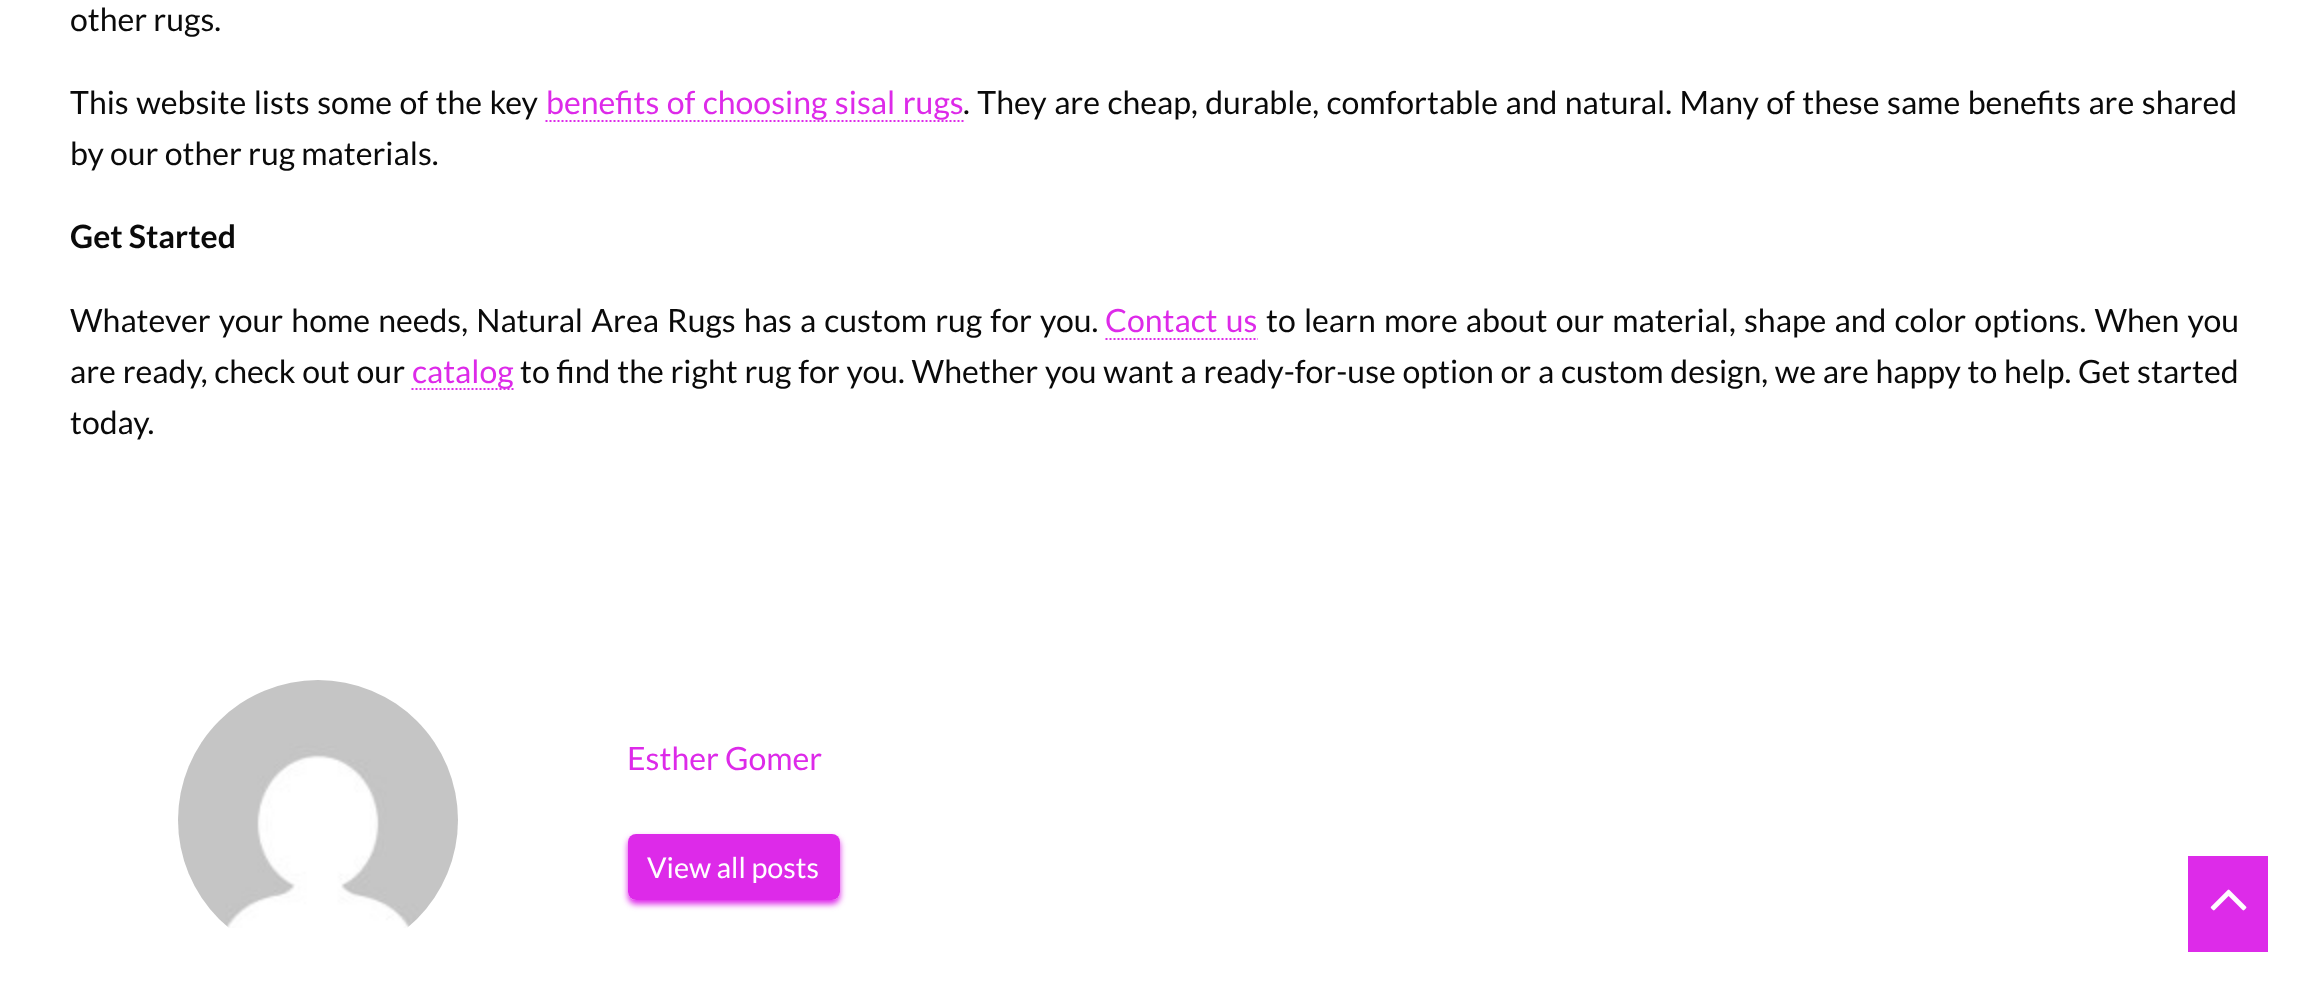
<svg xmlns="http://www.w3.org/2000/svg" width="2308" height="992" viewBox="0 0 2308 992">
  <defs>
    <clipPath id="clip1"><path d="M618 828H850V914H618ZM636 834H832C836.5 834 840 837.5 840 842V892C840 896.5 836.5 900 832 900H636C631.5 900 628 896.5 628 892V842C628 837.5 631.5 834 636 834Z" clip-rule="evenodd"/></clipPath>
    <filter id="blur1" x="-50%" y="-200%" width="200%" height="500%"><feGaussianBlur stdDeviation="3"/></filter>
  </defs>
  <rect width="100%" height="100%" fill="#ffffff"/>
  <text x="70" y="31" font-family="Lato" font-size="32" fill="#0a0a0a">other rugs.</text>
  <text x="70" y="114" word-spacing="1.3" font-family="Lato" font-size="32" fill="#0a0a0a">This website lists some of the key</text>
  <text x="546" y="114" word-spacing="1.3" font-family="Lato" font-size="32" fill="#dd2ae9">benefits of choosing sisal rugs</text>
  <path d="M545.5 121H963.5" fill="none" stroke="#dd2ae9" stroke-width="2" stroke-dasharray="2 2"/>
  <text x="963" y="114" word-spacing="1.3" font-family="Lato" font-size="32" fill="#0a0a0a">. They are cheap, durable, comfortable and natural. Many of these same benefits are shared</text>
  <text x="70" y="165" font-family="Lato" font-size="32" fill="#0a0a0a">by our other rug materials.</text>
  <text x="70" y="248" font-family="Lato" font-size="32" font-weight="bold" fill="#0a0a0a">Get Started</text>
  <text x="70" y="332" word-spacing="2" font-family="Lato" font-size="32" fill="#0a0a0a">Whatever your home needs, Natural Area Rugs has a custom rug for you.</text>
  <text x="1105" y="332" word-spacing="2" font-family="Lato" font-size="32" fill="#dd2ae9">Contact us</text>
  <path d="M1105.5 339H1258" fill="none" stroke="#dd2ae9" stroke-width="2" stroke-dasharray="2 2"/>
  <text x="1266" y="332" word-spacing="2" font-family="Lato" font-size="32" fill="#0a0a0a">to learn more about our material, shape and color options. When you</text>
  <text x="70" y="383" word-spacing="0.6" font-family="Lato" font-size="32" fill="#0a0a0a">are ready, check out our</text>
  <path d="M411.5 389H513.5" fill="none" stroke="#dd2ae9" stroke-width="2" stroke-dasharray="2 2"/>
  <text x="412" y="383" font-family="Lato" font-size="32" fill="#dd2ae9">catalog</text>
  <text x="520" y="383" word-spacing="0.6" font-family="Lato" font-size="32" fill="#0a0a0a">to find the right rug for you. Whether you want a ready-for-use option or a custom design, we are happy to help. Get started</text>
  <text x="70" y="434" font-family="Lato" font-size="32" fill="#0a0a0a">today.</text>
  <image x="178" y="680" width="280" height="248" href="img1.png"/>
  <text x="627" y="770" font-family="Lato" font-size="32" fill="#dd2ae9">Esther Gomer</text>
  <g clip-path="url(#clip1)">
    <rect x="628" y="838" width="212" height="66" rx="8" fill="#d707e5" fill-opacity="0.86" filter="url(#blur1)"/>
  </g>
  <rect x="628" y="834" width="212" height="66" rx="8" fill="#d707e5" fill-opacity="0.86"/>
  <text x="647" y="878" font-family="Lato" font-size="28.75" fill="#ffffff">View all posts</text>
  <rect x="2188" y="856" width="80" height="96" fill="#dd2be9"/>
  <image x="2210" y="889" width="37" height="22" href="img2.png"/>
</svg>
